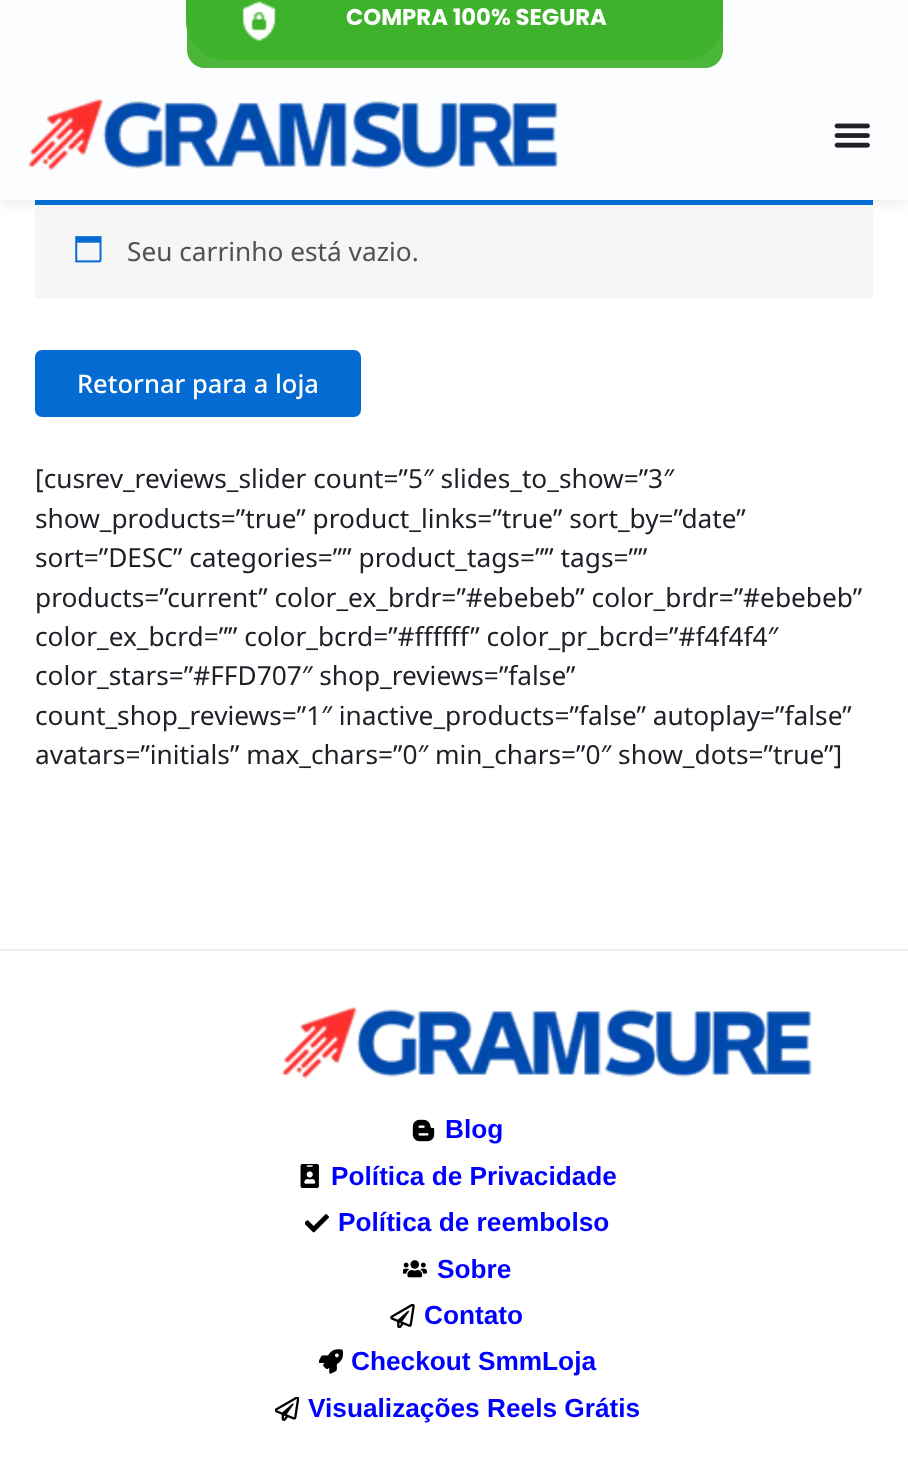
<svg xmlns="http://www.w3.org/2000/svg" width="908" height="1484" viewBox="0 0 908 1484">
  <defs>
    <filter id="blur1" x="-50%" y="-200%" width="200%" height="500%"><feGaussianBlur stdDeviation="7"/></filter>
  </defs>
  <rect width="100%" height="100%" fill="#ffffff"/>
  <rect x="0" y="4" width="908" height="199" fill="#000000" fill-opacity="0.08" filter="url(#blur1)"/>
  <rect x="0" y="0" width="908" height="200" fill="#fcfdfe"/>
  <path d="M187 0H723V50C723 60 715 68 705 68H205C195 68 187 60 187 50Z" fill="#4bb639"/>
  <path d="M186 0H723V21C723 42.5 705.5 60 684 60H225C203.5 60 186 42.5 186 21Z" fill="#3fb22c"/>
  <image x="242" y="1" width="34" height="40" href="img1.png"/>
  <text x="346" y="25" font-family="Poppins" font-size="22.75" font-weight="bold" fill="#ffffff">COMPRA 100% SEGURA</text>
  <image x="28" y="98" width="531" height="73" href="img2.png"/>
  <image x="834" y="123" width="36" height="25" href="img3.png"/>
  <rect x="35" y="206" width="838" height="92" fill="#f7f6f7"/>
  <rect x="35" y="200" width="838" height="5" fill="#046bd2"/>
  <image x="75" y="236" width="27" height="27" href="img4.png"/>
  <text x="127" y="261" font-family="Noto Sans" font-size="26.25" fill="#515151">Seu carrinho está vazio.</text>
  <rect x="35" y="350" width="326" height="67" rx="7" fill="#046bd2"/>
  <text x="77" y="393" font-family="Noto Sans" font-size="25.5" font-weight="500" fill="#ffffff">Retornar para a loja</text>
  <text x="35" y="488" font-family="Noto Sans" font-size="26.25" fill="#202029">[cusrev_reviews_slider count=”5″ slides_to_show=”3″</text>
  <text x="35" y="528" font-family="Noto Sans" font-size="26.25" fill="#202029">show_products=”true” product_links=”true” sort_by=”date”</text>
  <text x="35" y="567" font-family="Noto Sans" font-size="26.25" fill="#202029">sort=”DESC” categories=”” product_tags=”” tags=””</text>
  <text x="35" y="607" font-family="Noto Sans" font-size="26.25" fill="#202029">products=”current” color_ex_brdr=”#ebebeb” color_brdr=”#ebebeb”</text>
  <text x="35" y="646" font-family="Noto Sans" font-size="26.25" fill="#202029">color_ex_bcrd=”” color_bcrd=”#ffffff” color_pr_bcrd=”#f4f4f4″</text>
  <text x="35" y="685" font-family="Noto Sans" font-size="26.25" fill="#202029">color_stars=”#FFD707″ shop_reviews=”false”</text>
  <text x="35" y="725" font-family="Noto Sans" font-size="26.25" fill="#202029">count_shop_reviews=”1″ inactive_products=”false” autoplay=”false”</text>
  <text x="35" y="764" font-family="Noto Sans" font-size="26.25" fill="#202029">avatars=”initials” max_chars=”0″ min_chars=”0″ show_dots=”true”]</text>
  <rect x="0" y="949" width="908" height="2" fill="#eeeeee"/>
  <image x="281" y="1006" width="532" height="73" href="img5.png"/>
  <image x="412" y="1119" width="23" height="23" href="img6.png"/>
  <text x="445" y="1138" font-family="Liberation Sans" font-size="26.25" font-weight="bold" fill="#0000ff">Blog</text>
  <image x="300" y="1164" width="19" height="24" href="img7.png"/>
  <text x="331" y="1185" font-family="Liberation Sans" font-size="26.25" font-weight="bold" fill="#0000ff">Política de Privacidade</text>
  <image x="305" y="1214" width="24" height="19" href="img8.png"/>
  <text x="338" y="1231" font-family="Liberation Sans" font-size="26.25" font-weight="bold" fill="#0000ff">Política de reembolso</text>
  <image x="403" y="1260" width="24" height="18" href="img9.png"/>
  <text x="437" y="1278" font-family="Liberation Sans" font-size="26.25" font-weight="bold" fill="#0000ff">Sobre</text>
  <image x="390" y="1304" width="25" height="24" href="img10.png"/>
  <text x="424" y="1324" font-family="Liberation Sans" font-size="26.25" font-weight="bold" fill="#0000ff">Contato</text>
  <image x="319" y="1349" width="24" height="25" href="img11.png"/>
  <text x="351" y="1370" font-family="Liberation Sans" font-size="26.25" font-weight="bold" fill="#0000ff">Checkout SmmLoja</text>
  <image x="275" y="1397" width="24" height="24" href="img12.png"/>
  <text x="308" y="1417" font-family="Liberation Sans" font-size="26.25" font-weight="bold" fill="#0000ff">Visualizações Reels Grátis</text>
</svg>
